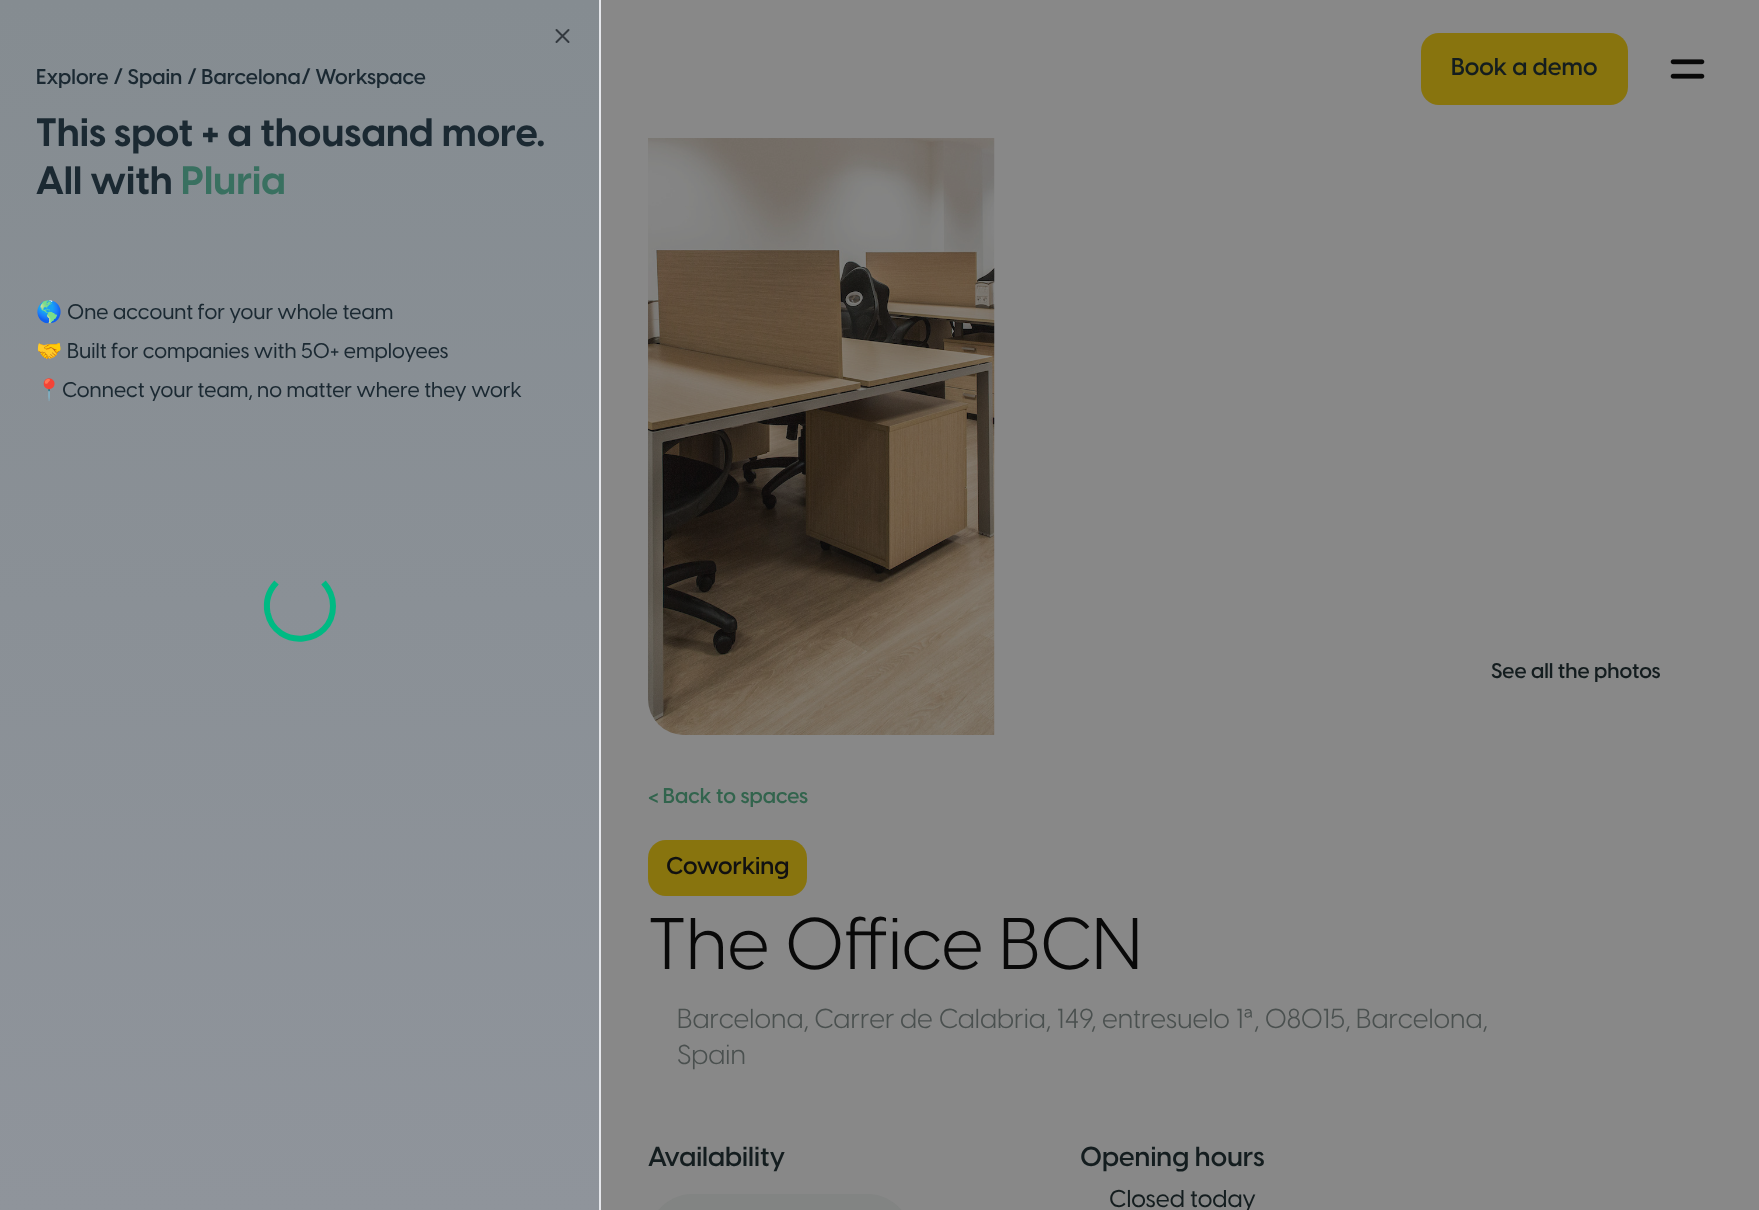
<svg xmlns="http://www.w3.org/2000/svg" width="1759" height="1210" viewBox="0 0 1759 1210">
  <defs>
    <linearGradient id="g1" gradientUnits="userSpaceOnUse" x1="299" y1="0" x2="299" y2="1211"><stop offset="0" stop-color="#858c91"/><stop offset="1" stop-color="#8f949b"/></linearGradient>
  </defs>
  <rect width="100%" height="100%" fill="#888888"/>
  <rect x="0" y="0" width="599" height="1210" fill="url(#g1)"/>
  <rect x="599" y="0" width="2" height="1210" fill="#e5e7eb"/>
  <path d="M568.5 30L556.5 42M556.5 30L568.5 42" fill="none" stroke="#33393f" stroke-width="2" stroke-linecap="round" stroke-linejoin="round"/>
  <text x="36" y="84" font-family="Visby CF" font-size="21" font-weight="600" fill="#1b2932">Explore / Spain / Barcelona/ Workspace</text>
  <text x="36" y="146" font-family="Visby CF" font-size="39" font-weight="bold" fill="#1b2932">This spot + a thousand more.</text>
  <text x="36" y="194" font-family="Visby CF" font-size="39" font-weight="bold" fill="#1b2932">All with</text>
  <text x="181" y="194" font-family="Visby CF" font-size="39" font-weight="bold" fill="#397060">Pluria</text>
  <text x="36" y="319" font-family="Noto Color Emoji" font-size="21" fill="#1b2932">🌎</text>
  <text x="67" y="319" font-family="Visby CF" font-size="21" font-weight="500" fill="#1b2932">One account for your whole team</text>
  <text x="36" y="358" font-family="Noto Color Emoji" font-size="21" fill="#1b2932">🤝</text>
  <text x="67" y="358" font-family="Visby CF" font-size="21" font-weight="500" fill="#1b2932">Built for companies with 50+ employees</text>
  <text x="36" y="397" font-family="Noto Color Emoji" font-size="21" fill="#1b2932">📍</text>
  <text x="62" y="397" font-family="Visby CF" font-size="21" font-weight="500" fill="#1b2932">Connect your team, no matter where they work</text>
  <path d="M323.5 582.5C329.5 589 333 597.5 333 606C333 645.5 275.5 651 267.5 612.5C265.5 601.5 269 590.5 276.5 582.5" fill="none" stroke="#00ba83" stroke-width="6"/>
  <rect x="1421" y="33" width="207" height="72" rx="18" fill="#88740e"/>
  <text x="1451" y="75" font-family="Visby CF" font-size="24" font-weight="600" fill="#141d1f">Book a demo</text>
  <image x="1670" y="59" width="35" height="20" href="img1.png"/>
  <image x="648" y="138" width="347" height="597" href="img2.png"/>
  <text x="1491" y="678" font-family="Visby CF" font-size="21" font-weight="600" fill="#141d1f">See all the photos</text>
  <text x="648" y="803" font-family="Visby CF" font-size="21" font-weight="600" fill="#32644d">&lt; Back to spaces</text>
  <rect x="648" y="840" width="159" height="56" rx="18" fill="#88740e"/>
  <text x="666" y="874" font-family="Visby CF" font-size="24" font-weight="600" fill="#111111">Coworking</text>
  <text x="648" y="969" font-family="Visby CF" font-size="72" fill="#090909">The Office BCN</text>
  <text x="677" y="1028" font-family="Visby CF" font-size="27" fill="#4a504f">Barcelona, Carrer de Calabria, 149, entresuelo 1ª, 08015, Barcelona,</text>
  <text x="677" y="1064" font-family="Visby CF" font-size="27" fill="#4a504f">Spain</text>
  <text x="648" y="1166" font-family="Visby CF" font-size="27" font-weight="600" fill="#141d1f">Availability</text>
  <path d="M693 1194H867C892 1194 912 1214 912 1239V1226H648V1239C648 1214 668 1194 693 1194Z" fill="#828483"/>
  <text x="1080" y="1166" font-family="Visby CF" font-size="27" font-weight="600" fill="#141d1f">Opening hours</text>
  <text x="1109" y="1207" font-family="Visby CF" font-size="24" font-weight="500" fill="#141d1f">Closed today</text>
</svg>
